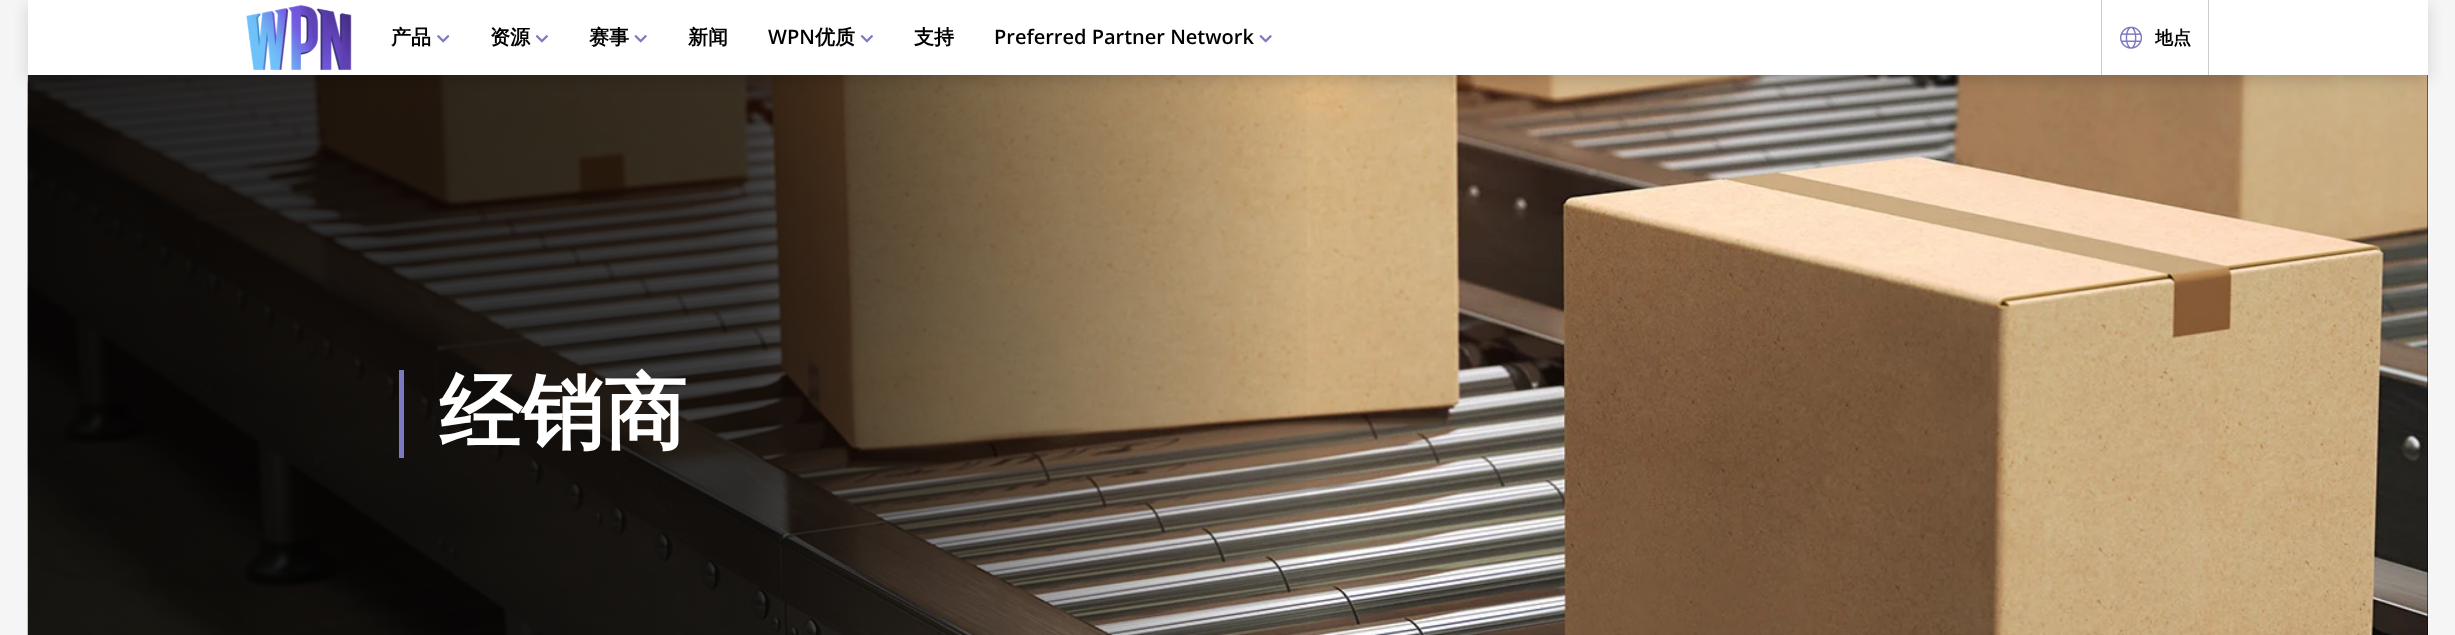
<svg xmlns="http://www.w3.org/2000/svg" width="2455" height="635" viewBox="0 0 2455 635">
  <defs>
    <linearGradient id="g1" gradientUnits="userSpaceOnUse" x1="28" y1="425" x2="2428" y2="425"><stop offset="0" stop-color="#000000" stop-opacity="0.85"/><stop offset="0.3" stop-color="#000000" stop-opacity="0.75"/><stop offset="0.54" stop-color="#000000" stop-opacity="0"/></linearGradient>
    <filter id="blur1" x="-50%" y="-200%" width="200%" height="500%"><feGaussianBlur stdDeviation="7.5"/></filter>
  </defs>
  <rect width="100%" height="100%" fill="#f5f5f5"/>
  <rect x="2427" y="75" width="1" height="560" fill="#000000"/>
  <image x="27" y="75" width="2401" height="560" href="img6.png"/>
  <rect x="28" y="75" width="1279" height="560" fill="url(#g1)"/>
  <rect x="28" y="5" width="2400" height="75" fill="#000000" fill-opacity="0.15" filter="url(#blur1)"/>
  <rect x="28" y="0" width="2400" height="75" fill="#ffffff"/>
  <image x="246" y="5" width="106" height="66" href="img1.png"/>
  <text x="391" y="44" font-family="WenQuanYi Zen Hei" font-size="20" font-weight="bold" fill="#000000">产品</text>
  <image x="437" y="35" width="13" height="8" href="img2.png"/>
  <text x="490" y="44" font-family="WenQuanYi Zen Hei" font-size="20" font-weight="bold" fill="#000000">资源</text>
  <image x="535" y="35" width="13" height="8" href="img3.png"/>
  <text x="589" y="44" font-family="WenQuanYi Zen Hei" font-size="20" font-weight="bold" fill="#000000">赛事</text>
  <image x="634" y="35" width="13" height="8" href="img4.png"/>
  <text x="688" y="44" font-family="WenQuanYi Zen Hei" font-size="20" font-weight="bold" fill="#000000">新闻</text>
  <text x="768" y="44" font-family="Open Sans" font-size="20" font-weight="600" fill="#000000">WPN</text>
  <text x="815" y="44" font-family="WenQuanYi Zen Hei" font-size="20" font-weight="bold" fill="#000000">优质</text>
  <image x="860" y="35" width="13" height="8" href="img3.png"/>
  <text x="914" y="44" font-family="WenQuanYi Zen Hei" font-size="20" font-weight="bold" fill="#000000">支持</text>
  <text x="994" y="44" font-family="Open Sans" font-size="20" font-weight="600" fill="#000000">Preferred Partner Network</text>
  <image x="1259" y="35" width="13" height="8" href="img4.png"/>
  <rect x="2208" y="0" width="1" height="75" fill="#cbcbcb"/>
  <rect x="2101" y="0" width="1" height="75" fill="#cbcbcb"/>
  <image x="2120" y="26" width="23" height="23" href="img5.png"/>
  <text x="2155" y="44" font-family="WenQuanYi Zen Hei" font-size="18" font-weight="bold" fill="#000000">地点</text>
  <rect x="399" y="370" width="5" height="88" fill="#7a79c1"/>
  <text x="439" y="441" font-family="WenQuanYi Zen Hei" font-size="82.5" font-weight="bold" fill="#ffffff">经销商</text>
</svg>
